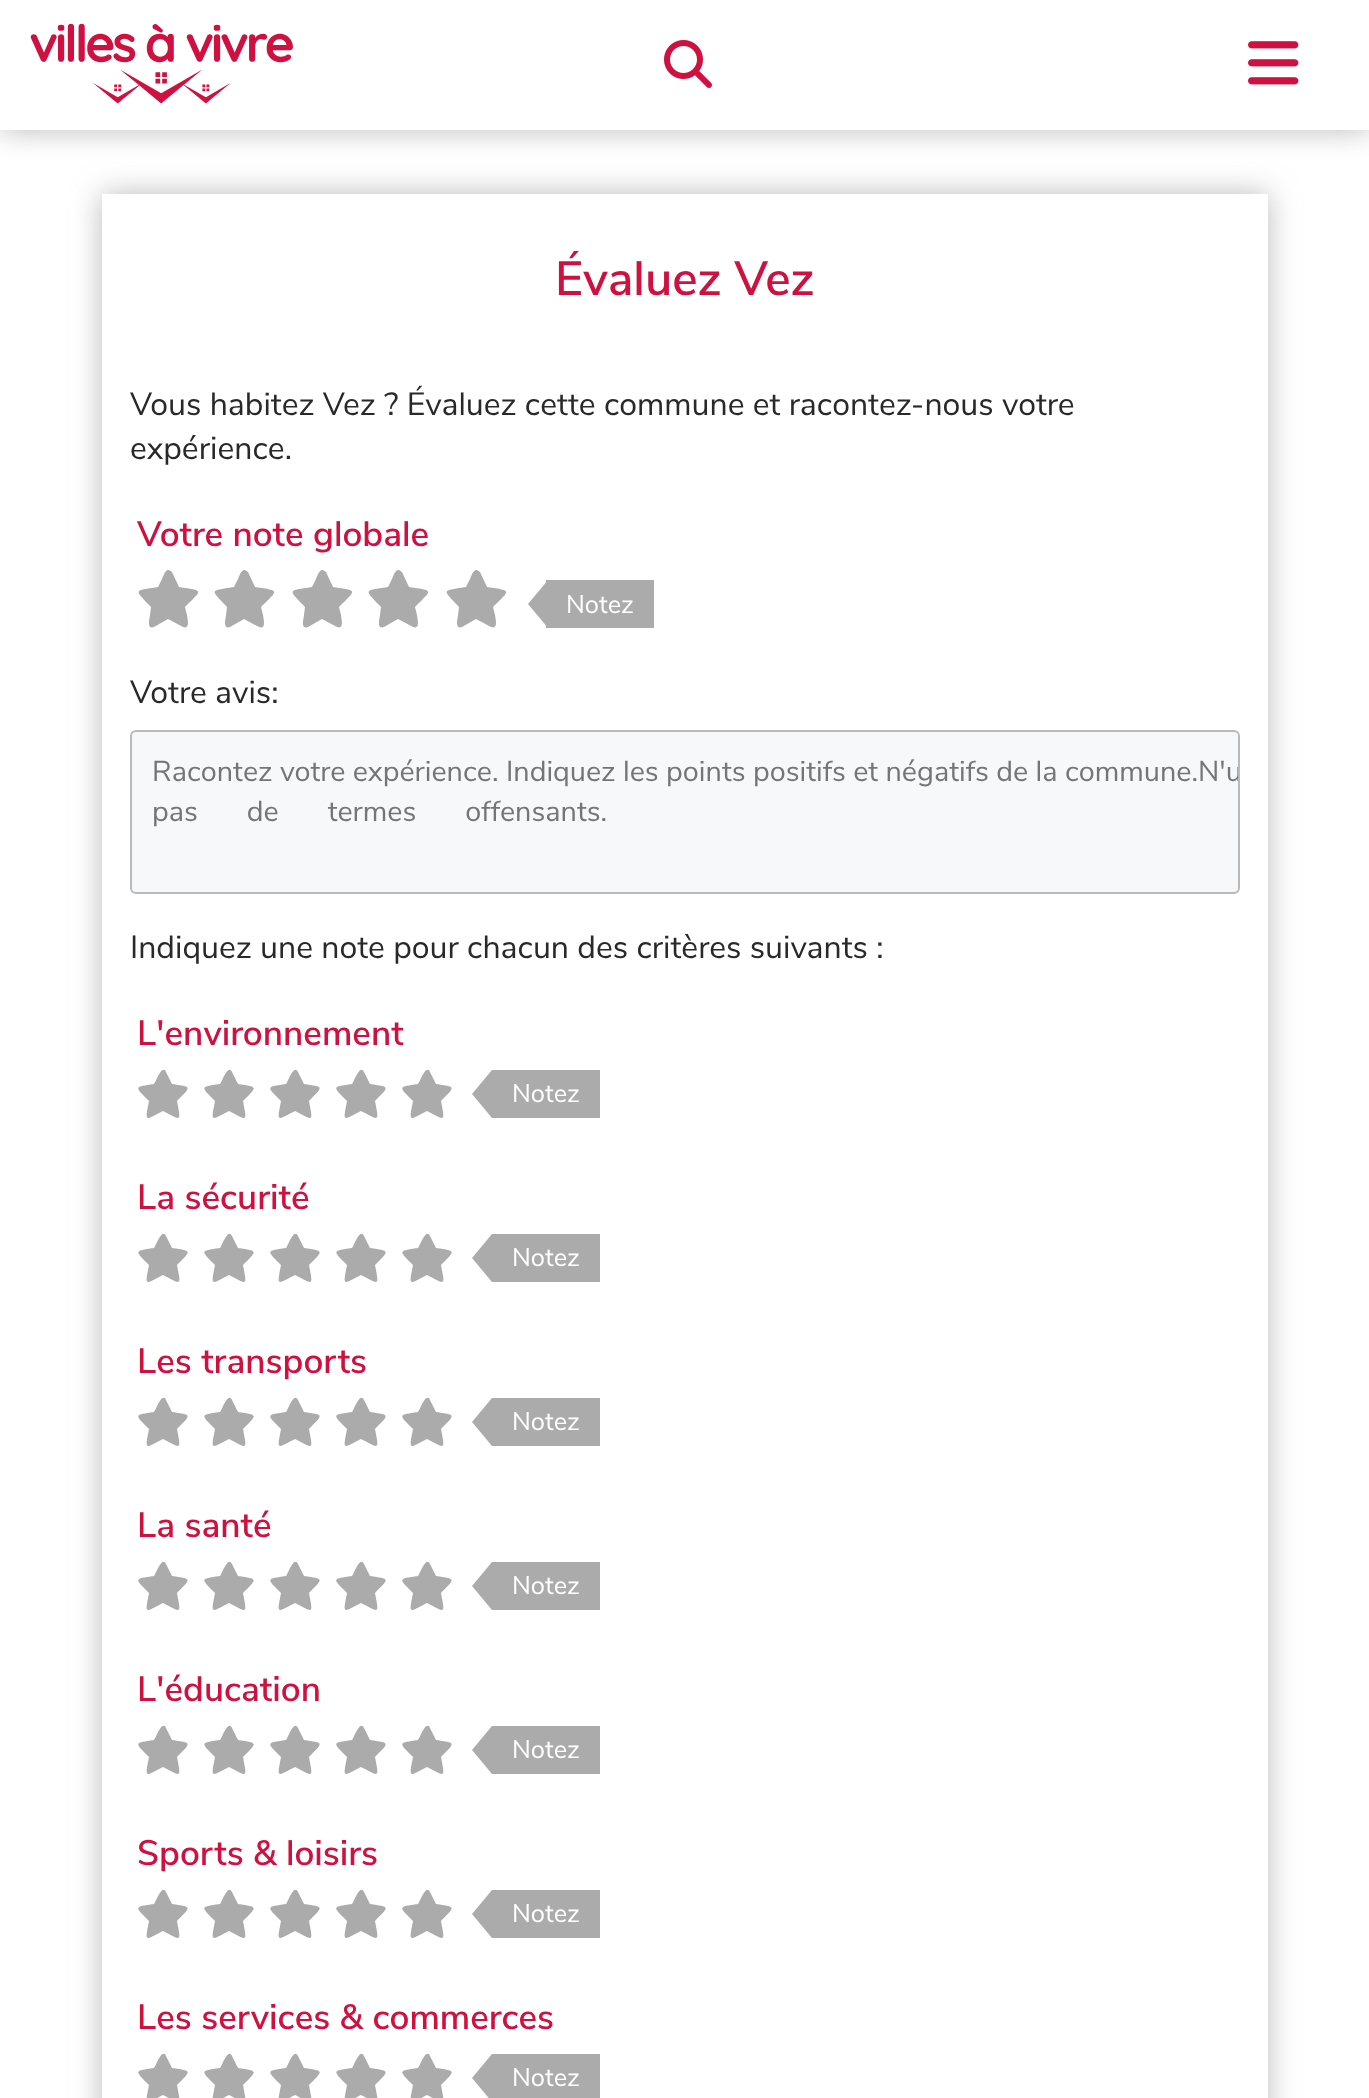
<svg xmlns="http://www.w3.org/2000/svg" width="1369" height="2098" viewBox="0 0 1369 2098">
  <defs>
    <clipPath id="clip1"><rect x="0" y="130" width="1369" height="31"/></clipPath>
    <filter id="blur1" x="-50%" y="-200%" width="200%" height="500%"><feGaussianBlur stdDeviation="15"/></filter>
    <clipPath id="clip2"><path d="M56 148H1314V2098H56ZM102 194H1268V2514H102Z" clip-rule="evenodd"/></clipPath>
    <clipPath id="clip3"><rect x="132" y="732" width="1106" height="160" rx="4"/></clipPath>
  </defs>
  <rect width="100%" height="100%" fill="#ffffff"/>
  <g clip-path="url(#clip1)">
    <rect x="0" y="0" width="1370" height="130" fill="#bababa" filter="url(#blur1)"/>
  </g>
  <image x="30" y="23" width="263" height="81" href="img1.png"/>
  <image x="664" y="40" width="48" height="48" href="img2.png"/>
  <image x="1248" y="41" width="51" height="44" href="img3.png"/>
  <g clip-path="url(#clip2)">
    <rect x="102" y="194" width="1166" height="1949" fill="#bababa" filter="url(#blur1)"/>
  </g>
  <text x="555" y="295" font-family="Nunito Sans" font-size="48" font-weight="600" fill="#ce1141">Évaluez Vez</text>
  <text x="130" y="415" font-family="Nunito Sans" font-size="32" fill="#292929">Vous habitez Vez ? Évaluez cette commune et racontez-nous votre</text>
  <text x="130" y="459" font-family="Nunito Sans" font-size="32" fill="#292929">expérience.</text>
  <text x="137" y="546" font-family="Nunito Sans" font-size="35.25" font-weight="600" fill="#ce1141">Votre note globale</text>
  <path d="M172 572L169 570C165 569 163 577 162 579L158 587C133 591 134 589 151 607L150 615C150 617 146 630 154 627L168 619L183 627C191 630 187 617 187 615L185 607C203 589 204 591 179 587Z" fill="#ababab"/>
  <path d="M248 572L245 570C241 569 239 577 238 579L234 587C209 591 210 589 227 607L226 615C226 617 222 630 230 627L244 619L259 627C267 630 263 617 263 615L261 607C279 589 280 591 255 587Z" fill="#ababab"/>
  <path d="M326 572L323 570C319 569 317 577 316 579L312 587C287 591 288 589 305 607L304 615C304 617 300 630 308 627L322 619L337 627C345 630 341 617 341 615L339 607C357 589 358 591 333 587Z" fill="#ababab"/>
  <path d="M402 572L399 570C395 569 393 577 392 579L388 587C363 591 364 589 381 607L380 615C380 617 376 630 384 627L398 619L413 627C421 630 417 617 417 615L415 607C433 589 434 591 409 587Z" fill="#ababab"/>
  <path d="M480 572L477 570C473 569 471 577 470 579L466 587C441 591 442 589 459 607L458 615C458 617 454 630 462 627L476 619L491 627C499 630 495 617 495 615L493 607C511 589 512 591 487 587Z" fill="#ababab"/>
  <rect x="546" y="580" width="108" height="48" fill="#ababab"/>
  <path d="M548 580V628L528 604Z" fill="#ababab"/>
  <text x="566" y="613" font-family="Nunito Sans" font-size="25.5" fill="#ffffff">Notez</text>
  <text x="130" y="703" font-family="Nunito Sans" font-size="32" fill="#292929">Votre avis:</text>
  <rect x="131" y="731" width="1108" height="162" rx="5" fill="#f6f8fa" stroke="#bababa" stroke-width="2"/>
  <text x="152" y="781" font-family="Nunito Sans" font-size="28.8" fill="#757575">Racontez votre expérience. Indiquez les points positifs et négatifs de la commune.</text>
  <g clip-path="url(#clip3)">
    <text x="1198" y="781" font-family="Nunito Sans" font-size="28.8" fill="#757575">N'u</text>
  </g>
  <text x="152" y="821" word-spacing="41.5" font-family="Nunito Sans" font-size="28.8" fill="#757575">pas de termes offensants.</text>
  <text x="130" y="958" font-family="Nunito Sans" font-size="32" fill="#292929">Indiquez une note pour chacun des critères suivants :</text>
  <text x="137" y="1045" font-family="Nunito Sans" font-size="35.25" font-weight="600" fill="#ce1141">L'environnement</text>
  <path d="M166 1072C162 1063 155 1084 154 1084C134 1087 134 1086 149 1101C145 1122 144 1121 163 1111C182 1121 181 1122 177 1101C192 1086 192 1087 172 1084Z" fill="#ababab"/>
  <path d="M232 1072C228 1063 221 1084 220 1084C200 1087 200 1086 215 1101C211 1122 210 1121 229 1111C248 1121 247 1122 243 1101C258 1086 258 1087 238 1084Z" fill="#ababab"/>
  <path d="M298 1072C294 1063 287 1084 286 1084C266 1087 266 1086 281 1101C277 1122 276 1121 295 1111C314 1121 313 1122 309 1101C324 1086 324 1087 304 1084Z" fill="#ababab"/>
  <path d="M364 1072C360 1063 353 1084 352 1084C332 1087 332 1086 347 1101C343 1122 342 1121 361 1111C380 1121 379 1122 375 1101C390 1086 390 1087 370 1084Z" fill="#ababab"/>
  <path d="M430 1072C426 1063 419 1084 418 1084C398 1087 398 1086 413 1101C409 1122 408 1121 427 1111C446 1121 445 1122 441 1101C456 1086 456 1087 436 1084Z" fill="#ababab"/>
  <rect x="492" y="1070" width="108" height="48" fill="#ababab"/>
  <path d="M492 1070V1118L472 1094Z" fill="#ababab"/>
  <text x="512" y="1102" font-family="Nunito Sans" font-size="25.5" fill="#ffffff">Notez</text>
  <text x="137" y="1209" font-family="Nunito Sans" font-size="35.25" font-weight="600" fill="#ce1141">La sécurité</text>
  <path d="M166 1236C162 1227 155 1248 154 1248C134 1251 134 1250 149 1265C145 1286 144 1285 163 1275C182 1285 181 1286 177 1265C192 1250 192 1251 172 1248Z" fill="#ababab"/>
  <path d="M232 1236C228 1227 221 1248 220 1248C200 1251 200 1250 215 1265C211 1286 210 1285 229 1275C248 1285 247 1286 243 1265C258 1250 258 1251 238 1248Z" fill="#ababab"/>
  <path d="M298 1236C294 1227 287 1248 286 1248C266 1251 266 1250 281 1265C277 1286 276 1285 295 1275C314 1285 313 1286 309 1265C324 1250 324 1251 304 1248Z" fill="#ababab"/>
  <path d="M364 1236C360 1227 353 1248 352 1248C332 1251 332 1250 347 1265C343 1286 342 1285 361 1275C380 1285 379 1286 375 1265C390 1250 390 1251 370 1248Z" fill="#ababab"/>
  <path d="M430 1236C426 1227 419 1248 418 1248C398 1251 398 1250 413 1265C409 1286 408 1285 427 1275C446 1285 445 1286 441 1265C456 1250 456 1251 436 1248Z" fill="#ababab"/>
  <rect x="492" y="1234" width="108" height="48" fill="#ababab"/>
  <path d="M492 1234V1282L472 1258Z" fill="#ababab"/>
  <text x="512" y="1266" font-family="Nunito Sans" font-size="25.5" fill="#ffffff">Notez</text>
  <text x="137" y="1373" font-family="Nunito Sans" font-size="35.25" font-weight="600" fill="#ce1141">Les transports</text>
  <path d="M166 1400C162 1391 155 1412 154 1412C134 1415 134 1414 149 1429C145 1450 144 1449 163 1439C182 1449 181 1450 177 1429C192 1414 192 1415 172 1412Z" fill="#ababab"/>
  <path d="M232 1400C228 1391 221 1412 220 1412C200 1415 200 1414 215 1429C211 1450 210 1449 229 1439C248 1449 247 1450 243 1429C258 1414 258 1415 238 1412Z" fill="#ababab"/>
  <path d="M298 1400C294 1391 287 1412 286 1412C266 1415 266 1414 281 1429C277 1450 276 1449 295 1439C314 1449 313 1450 309 1429C324 1414 324 1415 304 1412Z" fill="#ababab"/>
  <path d="M364 1400C360 1391 353 1412 352 1412C332 1415 332 1414 347 1429C343 1450 342 1449 361 1439C380 1449 379 1450 375 1429C390 1414 390 1415 370 1412Z" fill="#ababab"/>
  <path d="M430 1400C426 1391 419 1412 418 1412C398 1415 398 1414 413 1429C409 1450 408 1449 427 1439C446 1449 445 1450 441 1429C456 1414 456 1415 436 1412Z" fill="#ababab"/>
  <rect x="492" y="1398" width="108" height="48" fill="#ababab"/>
  <path d="M492 1398V1446L472 1422Z" fill="#ababab"/>
  <text x="512" y="1430" font-family="Nunito Sans" font-size="25.5" fill="#ffffff">Notez</text>
  <text x="137" y="1537" font-family="Nunito Sans" font-size="35.25" font-weight="600" fill="#ce1141">La santé</text>
  <path d="M166 1564C162 1555 155 1576 154 1576C134 1579 134 1578 149 1593C145 1614 144 1613 163 1603C182 1613 181 1614 177 1593C192 1578 192 1579 172 1576Z" fill="#ababab"/>
  <path d="M232 1564C228 1555 221 1576 220 1576C200 1579 200 1578 215 1593C211 1614 210 1613 229 1603C248 1613 247 1614 243 1593C258 1578 258 1579 238 1576Z" fill="#ababab"/>
  <path d="M298 1564C294 1555 287 1576 286 1576C266 1579 266 1578 281 1593C277 1614 276 1613 295 1603C314 1613 313 1614 309 1593C324 1578 324 1579 304 1576Z" fill="#ababab"/>
  <path d="M364 1564C360 1555 353 1576 352 1576C332 1579 332 1578 347 1593C343 1614 342 1613 361 1603C380 1613 379 1614 375 1593C390 1578 390 1579 370 1576Z" fill="#ababab"/>
  <path d="M430 1564C426 1555 419 1576 418 1576C398 1579 398 1578 413 1593C409 1614 408 1613 427 1603C446 1613 445 1614 441 1593C456 1578 456 1579 436 1576Z" fill="#ababab"/>
  <rect x="492" y="1562" width="108" height="48" fill="#ababab"/>
  <path d="M492 1562V1610L472 1586Z" fill="#ababab"/>
  <text x="512" y="1594" font-family="Nunito Sans" font-size="25.5" fill="#ffffff">Notez</text>
  <text x="137" y="1701" font-family="Nunito Sans" font-size="35.25" font-weight="600" fill="#ce1141">L'éducation</text>
  <path d="M166 1728C162 1719 155 1740 154 1740C134 1743 134 1742 149 1757C145 1778 144 1777 163 1767C182 1777 181 1778 177 1757C192 1742 192 1743 172 1740Z" fill="#ababab"/>
  <path d="M232 1728C228 1719 221 1740 220 1740C200 1743 200 1742 215 1757C211 1778 210 1777 229 1767C248 1777 247 1778 243 1757C258 1742 258 1743 238 1740Z" fill="#ababab"/>
  <path d="M298 1728C294 1719 287 1740 286 1740C266 1743 266 1742 281 1757C277 1778 276 1777 295 1767C314 1777 313 1778 309 1757C324 1742 324 1743 304 1740Z" fill="#ababab"/>
  <path d="M364 1728C360 1719 353 1740 352 1740C332 1743 332 1742 347 1757C343 1778 342 1777 361 1767C380 1777 379 1778 375 1757C390 1742 390 1743 370 1740Z" fill="#ababab"/>
  <path d="M430 1728C426 1719 419 1740 418 1740C398 1743 398 1742 413 1757C409 1778 408 1777 427 1767C446 1777 445 1778 441 1757C456 1742 456 1743 436 1740Z" fill="#ababab"/>
  <rect x="492" y="1726" width="108" height="48" fill="#ababab"/>
  <path d="M492 1726V1774L472 1750Z" fill="#ababab"/>
  <text x="512" y="1758" font-family="Nunito Sans" font-size="25.5" fill="#ffffff">Notez</text>
  <text x="137" y="1865" font-family="Nunito Sans" font-size="35.25" font-weight="600" fill="#ce1141">Sports &amp; loisirs</text>
  <path d="M166 1892C162 1883 155 1904 154 1904C134 1907 134 1906 149 1921C145 1942 144 1941 163 1931C182 1941 181 1942 177 1921C192 1906 192 1907 172 1904Z" fill="#ababab"/>
  <path d="M232 1892C228 1883 221 1904 220 1904C200 1907 200 1906 215 1921C211 1942 210 1941 229 1931C248 1941 247 1942 243 1921C258 1906 258 1907 238 1904Z" fill="#ababab"/>
  <path d="M298 1892C294 1883 287 1904 286 1904C266 1907 266 1906 281 1921C277 1942 276 1941 295 1931C314 1941 313 1942 309 1921C324 1906 324 1907 304 1904Z" fill="#ababab"/>
  <path d="M364 1892C360 1883 353 1904 352 1904C332 1907 332 1906 347 1921C343 1942 342 1941 361 1931C380 1941 379 1942 375 1921C390 1906 390 1907 370 1904Z" fill="#ababab"/>
  <path d="M430 1892C426 1883 419 1904 418 1904C398 1907 398 1906 413 1921C409 1942 408 1941 427 1931C446 1941 445 1942 441 1921C456 1906 456 1907 436 1904Z" fill="#ababab"/>
  <rect x="492" y="1890" width="108" height="48" fill="#ababab"/>
  <path d="M492 1890V1938L472 1914Z" fill="#ababab"/>
  <text x="512" y="1922" font-family="Nunito Sans" font-size="25.5" fill="#ffffff">Notez</text>
  <text x="137" y="2029" font-family="Nunito Sans" font-size="35.25" font-weight="600" fill="#ce1141">Les services &amp; commerces</text>
  <path d="M166 2056C162 2047 155 2068 154 2068C134 2071 134 2070 149 2085C145 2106 144 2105 163 2095C182 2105 181 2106 177 2085C192 2070 192 2071 172 2068Z" fill="#ababab"/>
  <path d="M232 2056C228 2047 221 2068 220 2068C200 2071 200 2070 215 2085C211 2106 210 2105 229 2095C248 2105 247 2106 243 2085C258 2070 258 2071 238 2068Z" fill="#ababab"/>
  <path d="M298 2056C294 2047 287 2068 286 2068C266 2071 266 2070 281 2085C277 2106 276 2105 295 2095C314 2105 313 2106 309 2085C324 2070 324 2071 304 2068Z" fill="#ababab"/>
  <path d="M364 2056C360 2047 353 2068 352 2068C332 2071 332 2070 347 2085C343 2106 342 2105 361 2095C380 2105 379 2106 375 2085C390 2070 390 2071 370 2068Z" fill="#ababab"/>
  <path d="M430 2056C426 2047 419 2068 418 2068C398 2071 398 2070 413 2085C409 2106 408 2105 427 2095C446 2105 445 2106 441 2085C456 2070 456 2071 436 2068Z" fill="#ababab"/>
  <rect x="492" y="2054" width="108" height="44" fill="#ababab"/>
  <path d="M492 2054V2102L472 2078Z" fill="#ababab"/>
  <text x="512" y="2086" font-family="Nunito Sans" font-size="25.5" fill="#ffffff">Notez</text>
</svg>
